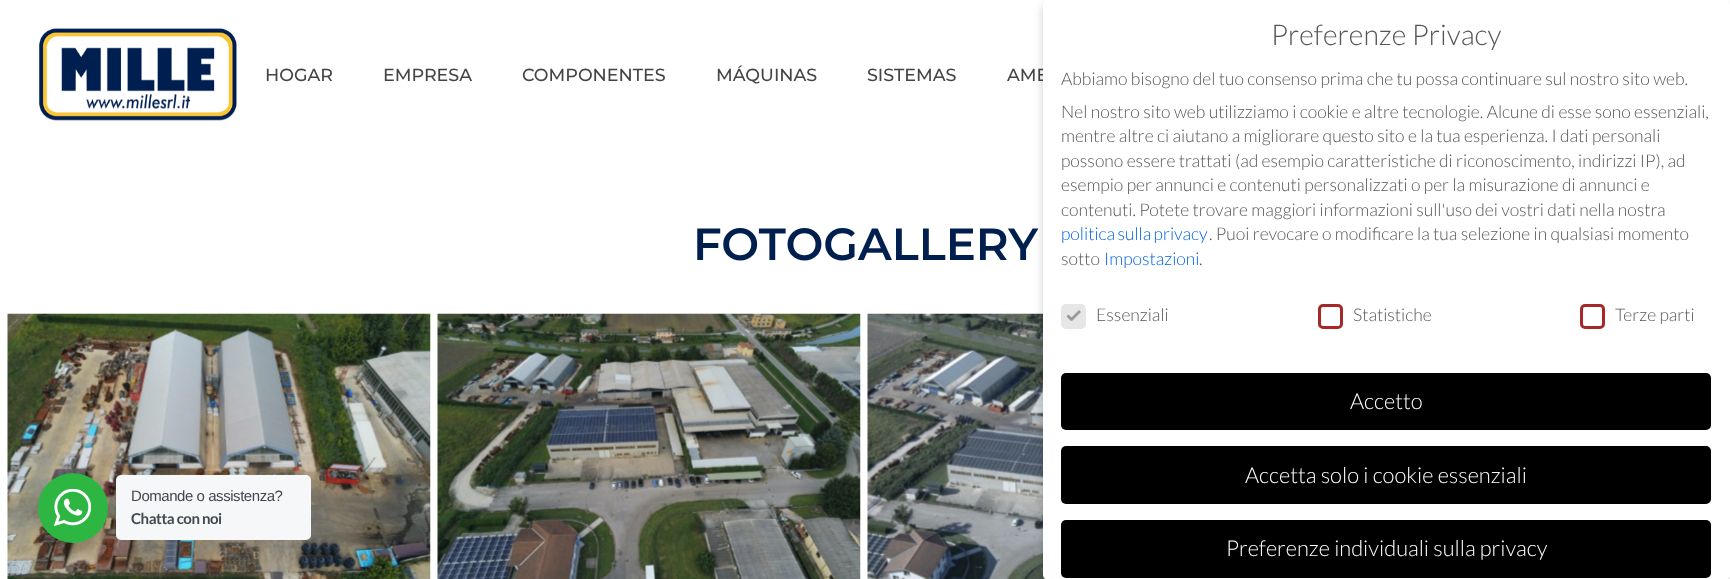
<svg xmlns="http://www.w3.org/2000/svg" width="1730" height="579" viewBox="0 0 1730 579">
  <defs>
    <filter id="blur1" x="-50%" y="-200%" width="200%" height="500%"><feGaussianBlur stdDeviation="5"/></filter>
  </defs>
  <rect width="100%" height="100%" fill="#ffffff"/>
  <image x="39" y="28" width="198" height="93" href="img1.png"/>
  <text x="265" y="81" font-family="Montserrat" font-size="17.5" font-weight="500" fill="#444444">HOGAR</text>
  <text x="383" y="81" font-family="Montserrat" font-size="17.5" font-weight="500" fill="#444444">EMPRESA</text>
  <text x="522" y="81" font-family="Montserrat" font-size="17.5" font-weight="500" fill="#444444">COMPONENTES</text>
  <text x="716" y="81" font-family="Montserrat" font-size="17.5" font-weight="500" fill="#444444">MÁQUINAS</text>
  <text x="867" y="81" font-family="Montserrat" font-size="17.5" font-weight="500" fill="#444444">SISTEMAS</text>
  <text x="1007" y="81" font-family="Montserrat" font-size="17.5" font-weight="500" fill="#444444">AMB</text>
  <image x="867" y="313" width="178" height="266" href="img4.png"/>
  <rect x="1043" y="5" width="687" height="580" rx="5" fill="#000000" fill-opacity="0.2" filter="url(#blur1)"/>
  <rect x="1043" y="0" width="687" height="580" rx="5" fill="#ffffff"/>
  <text x="1271" y="45" font-family="Lato" font-size="28.5" font-weight="300" fill="#555555">Preferenze Privacy</text>
  <text x="1061" y="85" font-family="Lato" font-size="17.5" font-weight="300" fill="#555555">Abbiamo bisogno del tuo consenso prima che tu possa continuare sul nostro sito web.</text>
  <text x="1061" y="118" font-family="Lato" font-size="17.5" font-weight="300" fill="#555555">Nel nostro sito web utilizziamo i cookie e altre tecnologie. Alcune di esse sono essenziali,</text>
  <text x="1061" y="142" font-family="Lato" font-size="17.5" font-weight="300" fill="#555555">mentre altre ci aiutano a migliorare questo sito e la tua esperienza. I dati personali</text>
  <text x="1061" y="167" font-family="Lato" font-size="17.5" font-weight="300" fill="#555555">possono essere trattati (ad esempio caratteristiche di riconoscimento, indirizzi IP), ad</text>
  <text x="1061" y="191" font-family="Lato" font-size="17.5" font-weight="300" fill="#555555">esempio per annunci e contenuti personalizzati o per la misurazione di annunci e</text>
  <text x="1061" y="216" font-family="Lato" font-size="17.5" font-weight="300" fill="#555555">contenuti. Potete trovare maggiori informazioni sull'uso dei vostri dati nella nostra</text>
  <text x="1061" y="240" word-spacing="-1" font-family="Lato" font-size="17.5" font-weight="300" fill="#0063e3">politica sulla privacy</text>
  <text x="1209" y="240" font-family="Lato" font-size="17.5" font-weight="300" fill="#555555">. Puoi revocare o modificare la tua selezione in qualsiasi momento</text>
  <text x="1061" y="265" font-family="Lato" font-size="17.5" font-weight="300" fill="#555555">sotto</text>
  <text x="1104" y="265" font-family="Lato" font-size="17.5" font-weight="300" fill="#0063e3">Impostazioni</text>
  <text x="1199" y="265" font-family="Lato" font-size="17.5" font-weight="300" fill="#555555">.</text>
  <rect x="1062.5" y="305.5" width="22" height="22" rx="3.5" fill="#e6e6e6" stroke="#e6e6e6" stroke-width="3"/>
  <path d="M1079 310L1081 312L1072 321L1070 319Z" fill="#999999"/>
  <path d="M1068.5 314.5L1073 319L1071 321L1066.5 316.5Z" fill="#999999"/>
  <text x="1096" y="321" font-family="Lato" font-size="17.5" font-weight="300" fill="#555555">Essenziali</text>
  <rect x="1319.5" y="305.5" width="22" height="22" rx="3.5" fill="none" stroke="#a72828" stroke-width="3"/>
  <text x="1353" y="321" font-family="Lato" font-size="17.5" font-weight="300" fill="#555555">Statistiche</text>
  <rect x="1581.5" y="305.5" width="22" height="22" rx="3.5" fill="none" stroke="#a72828" stroke-width="3"/>
  <text x="1615" y="321" font-family="Lato" font-size="17.5" font-weight="300" fill="#555555">Terze parti</text>
  <rect x="1061" y="373" width="650" height="57" rx="5" fill="#000000"/>
  <text x="1350" y="409" font-family="Lato" font-size="21.9" font-weight="300" fill="#ffffff">Accetto</text>
  <rect x="1061" y="446" width="650" height="58" rx="5" fill="#000000"/>
  <text x="1245" y="483" font-family="Lato" font-size="21.9" font-weight="300" fill="#ffffff">Accetta solo i cookie essenziali</text>
  <rect x="1061" y="520" width="650" height="58" rx="5" fill="#000000"/>
  <text x="1226" y="556" font-family="Lato" font-size="21.9" font-weight="300" fill="#ffffff">Preferenze individuali sulla privacy</text>
  <text x="693" y="260" font-family="Montserrat" font-size="45" font-weight="600" fill="#001f4f">FOTOGALLERY</text>
  <image x="7" y="313" width="424" height="266" href="img2.png"/>
  <image x="437" y="313" width="424" height="266" href="img3.png"/>
  <rect x="35" y="478" width="75" height="75" rx="37.5" fill="#000000" fill-opacity="0.14" filter="url(#blur1)"/>
  <circle cx="73" cy="508" r="35" fill="#2db742"/>
  <image x="54" y="489" width="37" height="37" href="img5.png"/>
  <rect x="116" y="475" width="195" height="65" rx="5" fill="#f5f7f9"/>
  <text x="131" y="501" font-family="Liberation Sans" font-size="15" letter-spacing="-0.45" fill="#43474e">Domande o assistenza?</text>
  <text x="131" y="524" font-family="Lato" font-size="15" font-weight="bold" letter-spacing="-0.45" fill="#43474e">Chatta con noi</text>
</svg>
